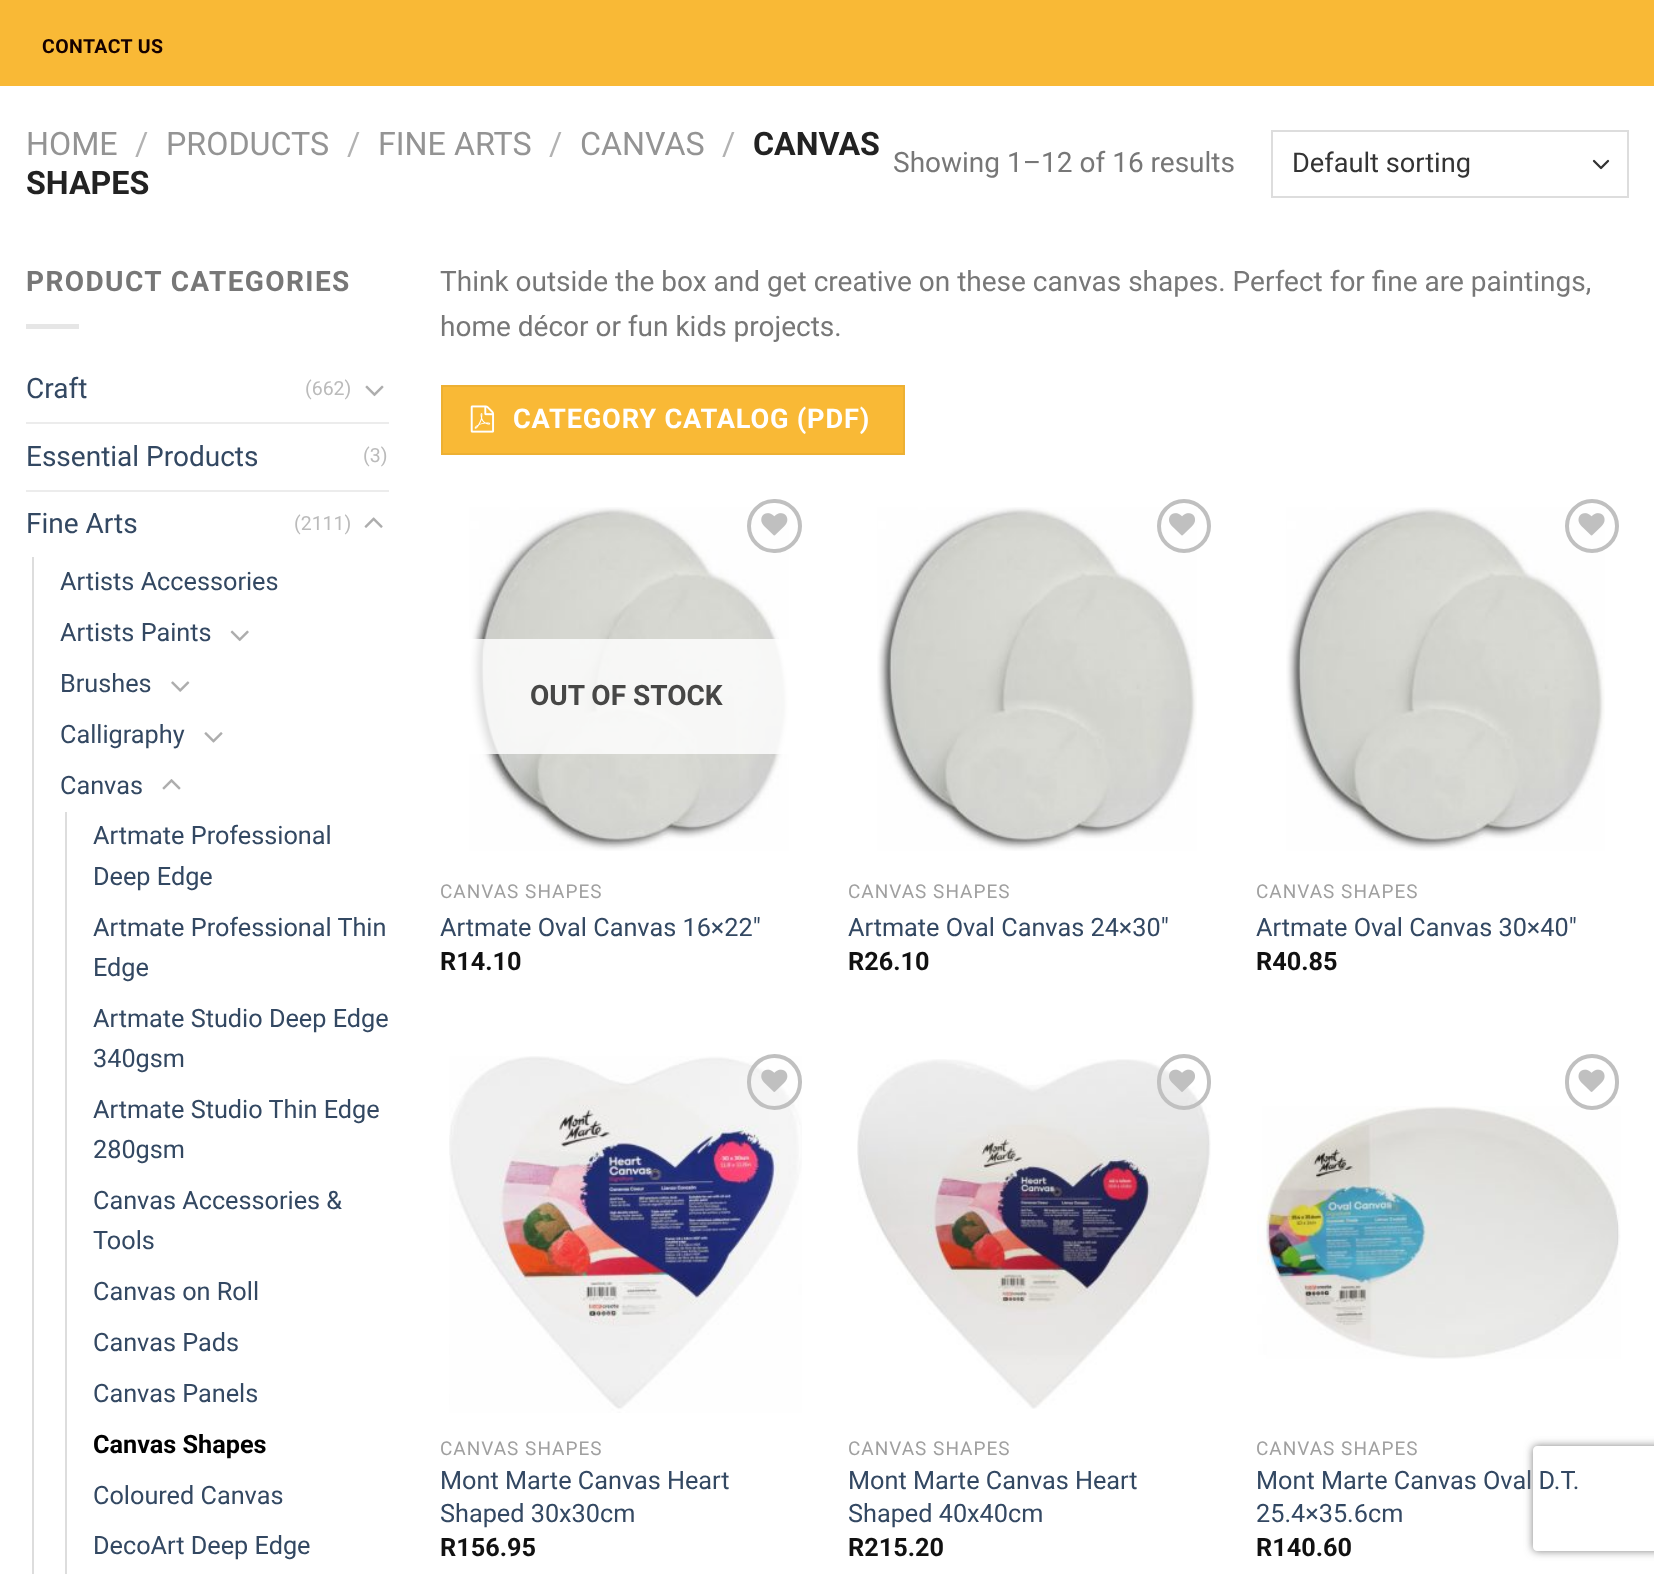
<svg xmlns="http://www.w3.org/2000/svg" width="1654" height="1574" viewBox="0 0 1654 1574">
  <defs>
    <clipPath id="clip1"><path d="M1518 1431H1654V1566H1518ZM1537 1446H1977C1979 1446 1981 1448 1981 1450V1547C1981 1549 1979 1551 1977 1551H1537C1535 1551 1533 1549 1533 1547V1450C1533 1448 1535 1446 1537 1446Z" clip-rule="evenodd"/></clipPath>
    <filter id="blur1" x="-50%" y="-200%" width="200%" height="500%"><feGaussianBlur stdDeviation="4.5"/></filter>
  </defs>
  <rect width="100%" height="100%" fill="#ffffff"/>
  <rect x="0" y="0" width="1654" height="86" fill="#f9b936"/>
  <text x="42" y="53" font-family="Roboto" font-size="19.5" font-weight="bold" letter-spacing="0.4" fill="#140000">CONTACT US</text>
  <text x="26" y="155" font-family="Roboto" font-size="32.25" fill="#949494">HOME</text>
  <text x="135" y="155" font-family="Roboto" font-size="32.25" fill="#b2b2b2">/</text>
  <text x="166" y="155" font-family="Roboto" font-size="32.25" fill="#949494">PRODUCTS</text>
  <text x="347" y="155" font-family="Roboto" font-size="32.25" fill="#b2b2b2">/</text>
  <text x="378" y="155" font-family="Roboto" font-size="32.25" fill="#949494">FINE ARTS</text>
  <text x="549" y="155" font-family="Roboto" font-size="32.25" fill="#b2b2b2">/</text>
  <text x="580" y="155" font-family="Roboto" font-size="32.25" fill="#949494">CANVAS</text>
  <text x="722" y="155" font-family="Roboto" font-size="32.25" fill="#b2b2b2">/</text>
  <text x="753" y="155" font-family="Roboto" font-size="32.25" font-weight="bold" fill="#222222">CANVAS</text>
  <text x="26" y="194" font-family="Roboto" font-size="32.25" font-weight="bold" fill="#222222">SHAPES</text>
  <text x="893" y="172" font-family="Roboto" font-size="28" fill="#777777">Showing 1–12 of 16 results</text>
  <path d="M1594 161L1601 168L1608 161" fill="none" stroke="#333333" stroke-width="2.3" stroke-linecap="round" stroke-linejoin="round"/>
  <rect x="1272" y="131" width="356" height="66" fill="none" stroke="#dddddd" stroke-width="2"/>
  <text x="1292" y="172" font-family="Roboto" font-size="27.2" fill="#333333">Default sorting</text>
  <text x="26" y="291" font-family="Roboto" font-size="28" font-weight="bold" letter-spacing="1.4" fill="#777777">PRODUCT CATEGORIES</text>
  <rect x="26" y="324" width="53" height="5" fill="#e6e6e6"/>
  <text x="26" y="398" font-family="Roboto" font-size="28" fill="#334862">Craft</text>
  <text x="305" y="395" font-family="Roboto" font-size="19.5" fill="#bbbbbb">(662)</text>
  <image x="365" y="385" width="19" height="12" href="img1.png"/>
  <rect x="26" y="422" width="363" height="2" fill="#ececec"/>
  <text x="26" y="466" font-family="Roboto" font-size="28" fill="#334862">Essential Products</text>
  <text x="363" y="462" font-family="Roboto" font-size="19.5" fill="#bbbbbb">(3)</text>
  <rect x="26" y="490" width="363" height="2" fill="#ececec"/>
  <text x="26" y="533" font-family="Roboto" font-size="28" fill="#334862">Fine Arts</text>
  <text x="294" y="530" font-family="Roboto" font-size="19.5" fill="#bbbbbb">(2111)</text>
  <image x="364" y="517" width="19" height="11" href="img2.png"/>
  <rect x="32" y="557" width="2" height="1017" fill="#dddddd"/>
  <text x="60" y="590" font-family="Roboto" font-size="25.25" fill="#334862">Artists Accessories</text>
  <text x="60" y="641" font-family="Roboto" font-size="25.25" fill="#334862">Artists Paints</text>
  <image x="230" y="630" width="19" height="12" href="img3.png"/>
  <text x="60" y="692" font-family="Roboto" font-size="25.25" fill="#334862">Brushes</text>
  <image x="171" y="681" width="19" height="11" href="img4.png"/>
  <text x="60" y="743" font-family="Roboto" font-size="25.25" fill="#334862">Calligraphy</text>
  <image x="204" y="732" width="19" height="11" href="img5.png"/>
  <text x="60" y="794" font-family="Roboto" font-size="25.25" fill="#334862">Canvas</text>
  <image x="162" y="779" width="19" height="11" href="img6.png"/>
  <rect x="65" y="812" width="2" height="762" fill="#dddddd"/>
  <text x="93" y="844" font-family="Roboto" font-size="25.25" fill="#334862">Artmate Professional</text>
  <text x="93" y="885" font-family="Roboto" font-size="25.25" fill="#334862">Deep Edge</text>
  <text x="93" y="936" font-family="Roboto" font-size="25.25" fill="#334862">Artmate Professional Thin</text>
  <text x="93" y="976" font-family="Roboto" font-size="25.25" fill="#334862">Edge</text>
  <text x="93" y="1027" font-family="Roboto" font-size="25.25" fill="#334862">Artmate Studio Deep Edge</text>
  <text x="93" y="1067" font-family="Roboto" font-size="25.25" fill="#334862">340gsm</text>
  <text x="93" y="1118" font-family="Roboto" font-size="25.25" fill="#334862">Artmate Studio Thin Edge</text>
  <text x="93" y="1158" font-family="Roboto" font-size="25.25" fill="#334862">280gsm</text>
  <text x="93" y="1209" font-family="Roboto" font-size="25.25" fill="#334862">Canvas Accessories &amp;</text>
  <text x="93" y="1249" font-family="Roboto" font-size="25.25" fill="#334862">Tools</text>
  <text x="93" y="1300" font-family="Roboto" font-size="25.25" fill="#334862">Canvas on Roll</text>
  <text x="93" y="1351" font-family="Roboto" font-size="25.25" fill="#334862">Canvas Pads</text>
  <text x="93" y="1402" font-family="Roboto" font-size="25.25" fill="#334862">Canvas Panels</text>
  <text x="93" y="1453" font-family="Roboto" font-size="25.25" font-weight="bold" fill="#000000">Canvas Shapes</text>
  <text x="93" y="1504" font-family="Roboto" font-size="25.25" fill="#334862">Coloured Canvas</text>
  <text x="93" y="1554" font-family="Roboto" font-size="25.25" fill="#334862">DecoArt Deep Edge</text>
  <text x="440" y="291" font-family="Roboto" font-size="28" fill="#777777">Think outside the box and get creative on these canvas shapes. Perfect for fine are paintings,</text>
  <text x="440" y="336" font-family="Roboto" font-size="28" fill="#777777">home décor or fun kids projects.</text>
  <rect x="442" y="386" width="462" height="68" fill="#f9b936" stroke="#edb033" stroke-width="2"/>
  <image x="470" y="405" width="25" height="28" href="img7.png"/>
  <text x="513" y="428" font-family="Roboto" font-size="27.2" font-weight="bold" letter-spacing="0.8" fill="#ffffff">CATEGORY CATALOG (PDF)</text>
  <image x="469" y="507" width="320" height="344" href="img9.png"/>
  <rect x="749" y="501" width="51" height="50" rx="25" fill="none" stroke="#c0c0c0" stroke-width="4"/>
  <image x="761" y="513" width="27" height="23" href="img8.png"/>
  <rect x="469" y="639" width="320" height="115" fill="#ffffff" fill-opacity="0.81"/>
  <text x="530" y="705" font-family="Roboto" font-size="28" font-weight="bold" fill="#474746">OUT OF STOCK</text>
  <text x="440" y="898" font-family="Roboto" font-size="19" letter-spacing="1" fill="#a0a0a0">CANVAS SHAPES</text>
  <text x="440" y="936" font-family="Roboto" font-size="25.25" fill="#334862">Artmate Oval Canvas 16×22″</text>
  <text x="440" y="970" font-family="Roboto" font-size="25.25" font-weight="bold" fill="#111111">R14.10</text>
  <image x="877" y="507" width="320" height="344" href="img11.png"/>
  <circle cx="1184" cy="526" r="25" fill="none" stroke="#c0c0c0" stroke-width="4"/>
  <image x="1169" y="513" width="26" height="23" href="img10.png"/>
  <text x="848" y="898" font-family="Roboto" font-size="19" letter-spacing="1" fill="#a0a0a0">CANVAS SHAPES</text>
  <text x="848" y="936" font-family="Roboto" font-size="25.25" fill="#334862">Artmate Oval Canvas 24×30″</text>
  <text x="848" y="970" font-family="Roboto" font-size="25.25" font-weight="bold" fill="#111111">R26.10</text>
  <image x="1286" y="507" width="319" height="344" href="img13.png"/>
  <circle cx="1592" cy="526" r="25" fill="none" stroke="#c0c0c0" stroke-width="4"/>
  <image x="1578" y="513" width="27" height="23" href="img12.png"/>
  <text x="1256" y="898" font-family="Roboto" font-size="19" letter-spacing="1" fill="#a0a0a0">CANVAS SHAPES</text>
  <text x="1256" y="936" font-family="Roboto" font-size="25.25" fill="#334862">Artmate Oval Canvas 30×40″</text>
  <text x="1256" y="970" font-family="Roboto" font-size="25.25" font-weight="bold" fill="#111111">R40.85</text>
  <image x="449" y="1056" width="353" height="357" href="img15.png"/>
  <rect x="749" y="1056" width="51" height="52" rx="25.5" fill="none" stroke="#c0c0c0" stroke-width="4"/>
  <image x="761" y="1069" width="27" height="23" href="img14.png"/>
  <text x="440" y="1455" font-family="Roboto" font-size="19" letter-spacing="1" fill="#a0a0a0">CANVAS SHAPES</text>
  <text x="440" y="1489" font-family="Roboto" font-size="25.25" fill="#334862">Mont Marte Canvas Heart</text>
  <text x="440" y="1522" font-family="Roboto" font-size="25.25" fill="#334862">Shaped 30x30cm</text>
  <text x="440" y="1556" font-family="Roboto" font-size="25.25" font-weight="bold" fill="#111111">R156.95</text>
  <image x="857" y="1059" width="354" height="350" href="img17.png"/>
  <rect x="1159" y="1056" width="50" height="52" rx="25" fill="none" stroke="#c0c0c0" stroke-width="4"/>
  <image x="1169" y="1069" width="26" height="23" href="img16.png"/>
  <text x="848" y="1455" font-family="Roboto" font-size="19" letter-spacing="1" fill="#a0a0a0">CANVAS SHAPES</text>
  <text x="848" y="1489" font-family="Roboto" font-size="25.25" fill="#334862">Mont Marte Canvas Heart</text>
  <text x="848" y="1522" font-family="Roboto" font-size="25.25" fill="#334862">Shaped 40x40cm</text>
  <text x="848" y="1556" font-family="Roboto" font-size="25.25" font-weight="bold" fill="#111111">R215.20</text>
  <image x="1257" y="1106" width="364" height="253" href="img19.png"/>
  <rect x="1567" y="1056" width="50" height="52" rx="25" fill="none" stroke="#c0c0c0" stroke-width="4"/>
  <image x="1578" y="1069" width="27" height="23" href="img18.png"/>
  <text x="1256" y="1455" font-family="Roboto" font-size="19" letter-spacing="1" fill="#a0a0a0">CANVAS SHAPES</text>
  <text x="1256" y="1489" font-family="Roboto" font-size="25.25" fill="#334862">Mont Marte Canvas Oval D.T.</text>
  <text x="1256" y="1522" font-family="Roboto" font-size="25.25" fill="#334862">25.4×35.6cm</text>
  <text x="1256" y="1556" font-family="Roboto" font-size="25.25" font-weight="bold" fill="#111111">R140.60</text>
  <g clip-path="url(#clip1)">
    <rect x="1533" y="1446" width="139" height="105" rx="4" fill="#808080" filter="url(#blur1)"/>
  </g>
</svg>
